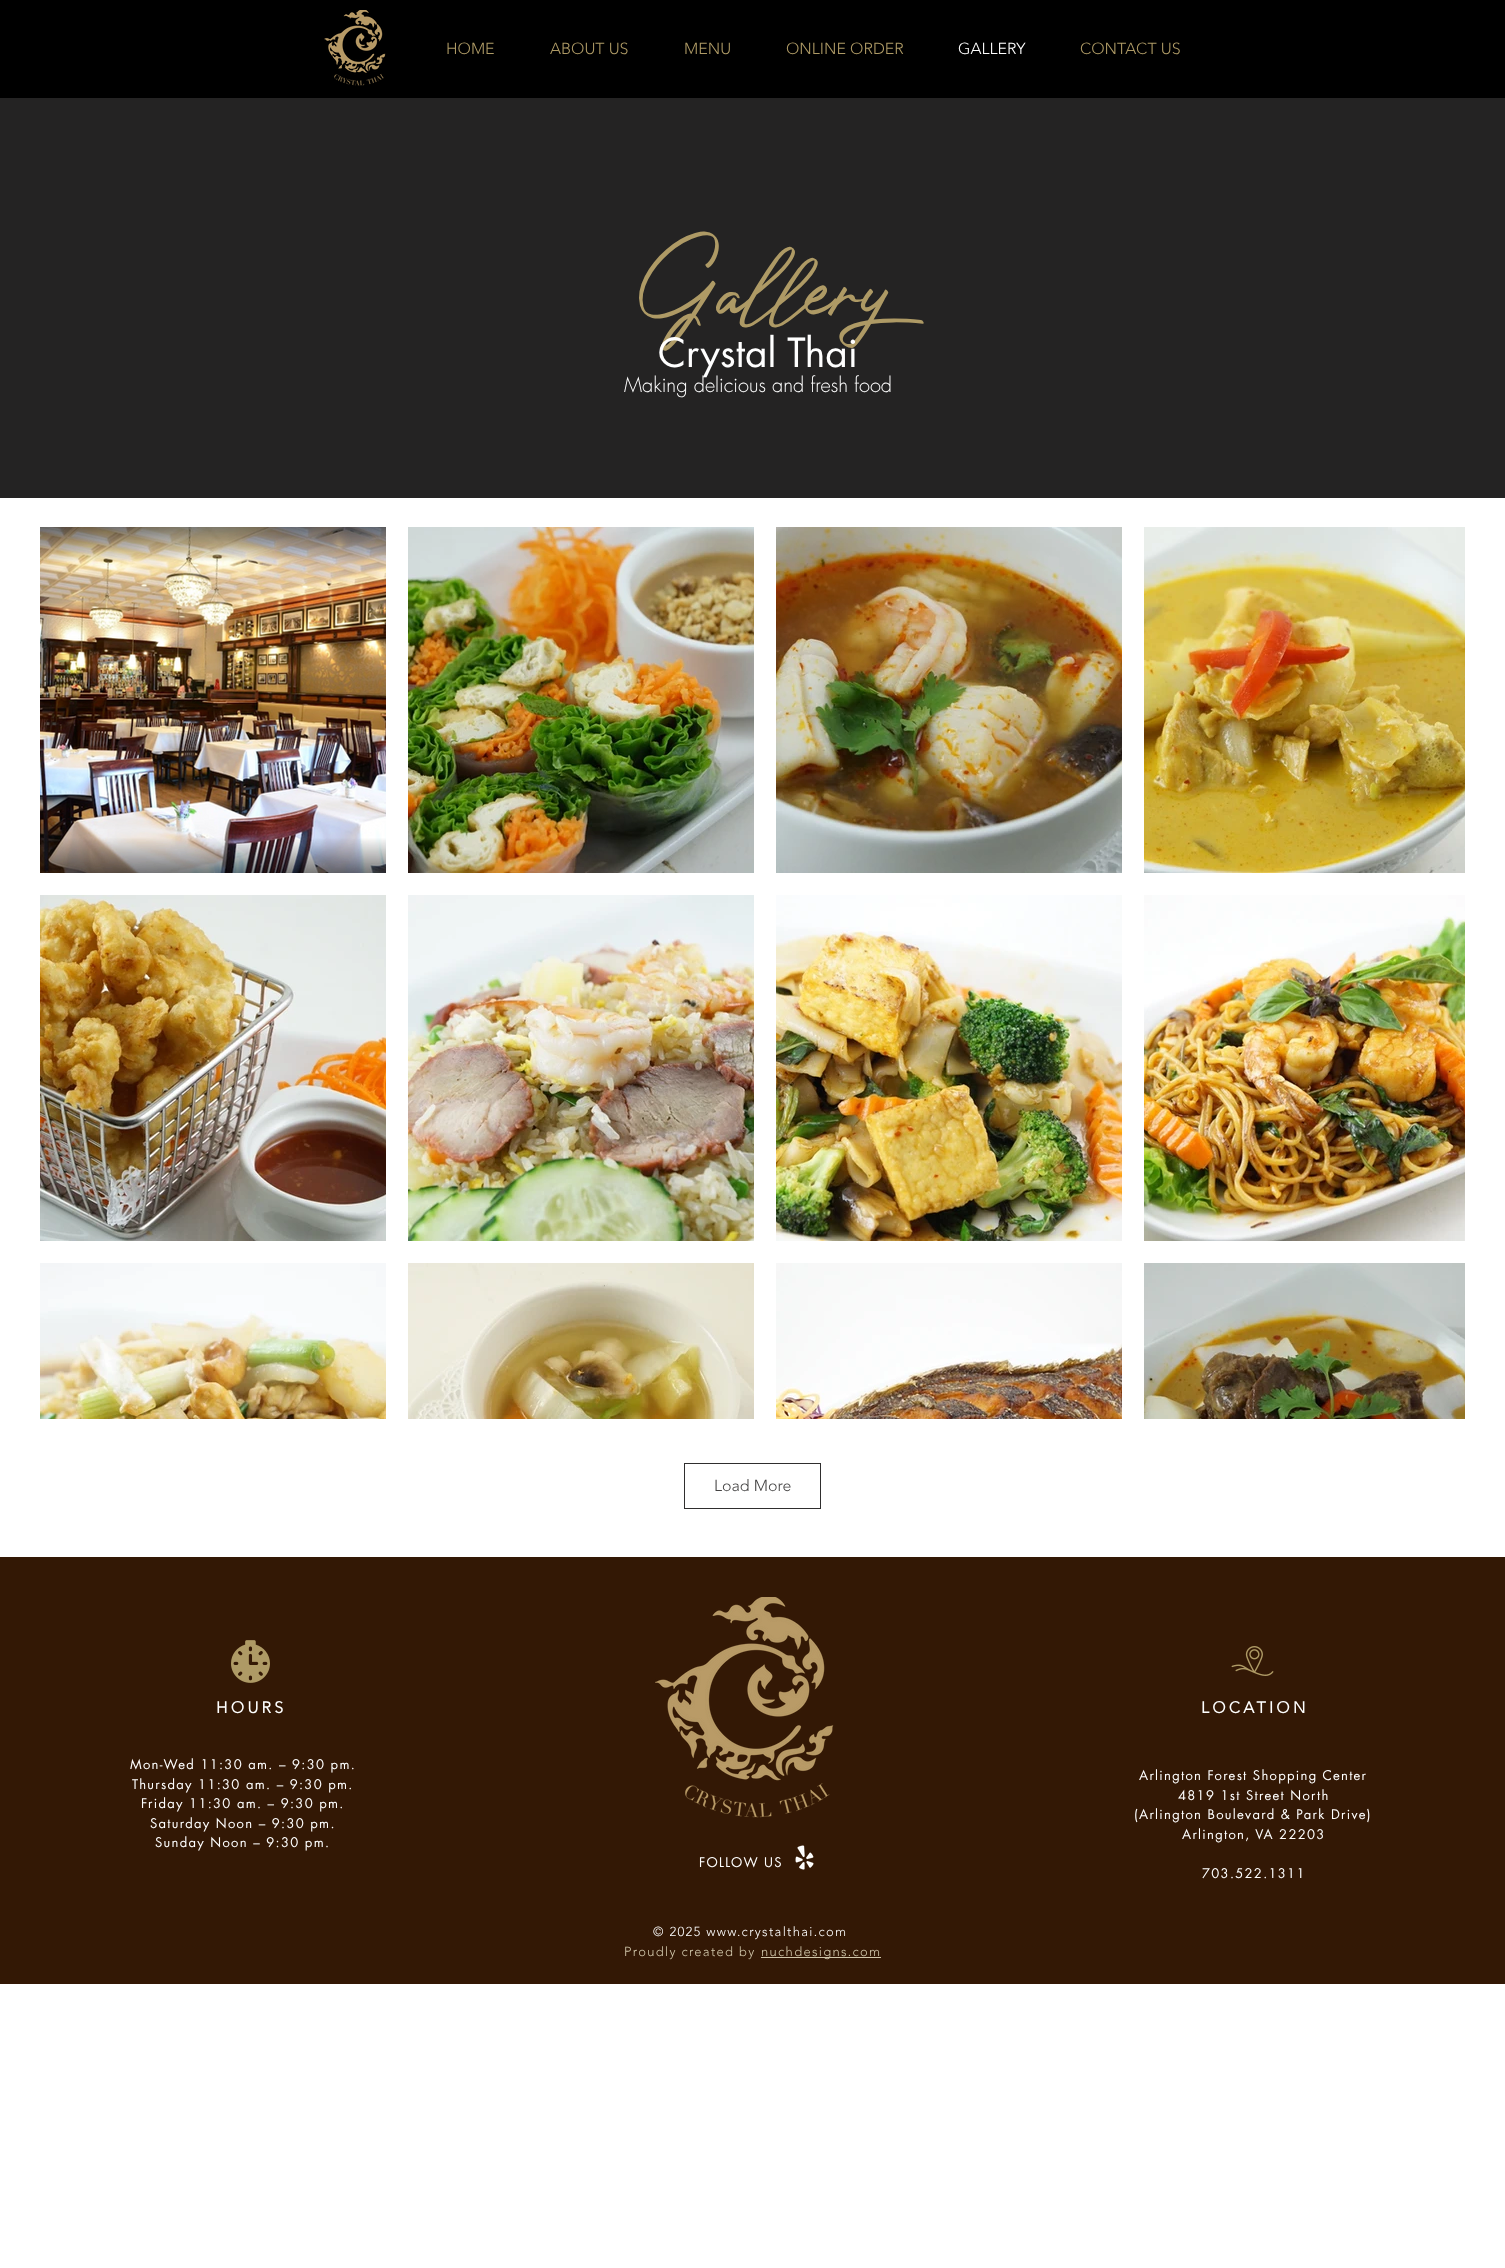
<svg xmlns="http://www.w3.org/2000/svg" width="1505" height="2268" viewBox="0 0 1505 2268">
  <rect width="100%" height="100%" fill="#ffffff"/>
  <rect x="0" y="0" width="1505" height="98" fill="#000000"/>
  <image x="324" y="10" width="62" height="76" href="img1.png"/>
  <text x="446" y="54" font-family="'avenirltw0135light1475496'" font-size="16" font-weight="300" fill="#ae9a65">HOME</text>
  <text x="550" y="54" font-family="'avenirltw0135light1475496'" font-size="16" font-weight="300" fill="#ae9a65">ABOUT US</text>
  <text x="684" y="54" font-family="'avenirltw0135light1475496'" font-size="16" font-weight="300" fill="#ae9a65">MENU</text>
  <text x="786" y="54" font-family="'avenirltw0135light1475496'" font-size="16" font-weight="300" fill="#ae9a65">ONLINE ORDER</text>
  <text x="958" y="54" font-family="'avenirltw0135light1475496'" font-size="16" font-weight="300" fill="#ffffff">GALLERY</text>
  <text x="1080" y="54" font-family="'avenirltw0135light1475496'" font-size="16" font-weight="300" fill="#ae9a65">CONTACT US</text>
  <rect x="0" y="98" width="1505" height="400" fill="#242323"/>
  <text x="638" y="332" font-family="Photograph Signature" font-size="108" fill="#ae9a65">Gallery</text>
  <text x="658" y="367" font-family="futura" font-size="39" fill="#ffffff">Crystal Thai</text>
  <text x="624" y="392" font-family="futura" font-size="20" font-weight="300" fill="#ffffff">Making delicious and fresh food</text>
  <image x="40" y="527" width="346" height="346" href="img2.png"/>
  <image x="408" y="527" width="346" height="346" href="img3.png"/>
  <image x="776" y="527" width="346" height="346" href="img4.png"/>
  <image x="1144" y="527" width="321" height="346" href="img5.png"/>
  <image x="40" y="895" width="346" height="346" href="img6.png"/>
  <image x="408" y="895" width="346" height="346" href="img7.png"/>
  <image x="776" y="895" width="346" height="346" href="img8.png"/>
  <image x="1144" y="895" width="321" height="346" href="img9.png"/>
  <image x="40" y="1263" width="346" height="156" href="img10.png"/>
  <image x="408" y="1263" width="346" height="156" href="img11.png"/>
  <image x="776" y="1263" width="346" height="156" href="img12.png"/>
  <image x="1144" y="1263" width="321" height="156" href="img13.png"/>
  <rect x="684.5" y="1463.5" width="136" height="45" fill="none" stroke="#2f2e2e"/>
  <text x="714" y="1491" font-family="'avenirltw0135light1475496'" font-size="16" font-weight="300" fill="#444343">Load More</text>
  <rect x="0" y="1557" width="1505" height="427" fill="#331805"/>
  <image x="231" y="1640" width="39" height="43" href="img14.png"/>
  <text x="216" y="1713" font-family="'avenirltw0135light1475496'" font-size="16" font-weight="bold" letter-spacing="3.25" fill="#ffffff">HOURS</text>
  <text x="130" y="1769" font-family="futura" font-size="13" letter-spacing="1.3" fill="#ffffff">Mon-Wed 11:30 am. – 9:30 pm.</text>
  <text x="132" y="1789" font-family="futura" font-size="13" letter-spacing="1.3" fill="#ffffff">Thursday 11:30 am. – 9:30 pm.</text>
  <text x="141" y="1808" font-family="futura" font-size="13" letter-spacing="1.3" fill="#ffffff">Friday 11:30 am. – 9:30 pm.</text>
  <text x="150" y="1828" font-family="futura" font-size="13" letter-spacing="1.3" fill="#ffffff">Saturday Noon – 9:30 pm.</text>
  <text x="155" y="1847" font-family="futura" font-size="13" letter-spacing="1.3" fill="#ffffff">Sunday Noon – 9:30 pm.</text>
  <image x="1231" y="1646" width="43" height="30" href="img15.png"/>
  <text x="1201" y="1713" font-family="'avenirltw0135light1475496'" font-size="16" font-weight="bold" letter-spacing="3.25" fill="#ffffff">LOCATION</text>
  <text x="1139" y="1780" font-family="futura" font-size="13" letter-spacing="1.3" fill="#ffffff">Arlington Forest Shopping Center</text>
  <text x="1178" y="1800" font-family="futura" font-size="13" letter-spacing="1.3" fill="#ffffff">4819 1st Street North</text>
  <text x="1134" y="1819" font-family="futura" font-size="13" letter-spacing="1.3" fill="#ffffff">(Arlington Boulevard &amp; Park Drive)</text>
  <text x="1182" y="1839" font-family="futura" font-size="13" letter-spacing="1.3" fill="#ffffff">Arlington, VA 22203</text>
  <text x="1202" y="1878" font-family="futura" font-size="13" letter-spacing="1.3" fill="#ffffff">703.522.1311</text>
  <image x="655" y="1597" width="179" height="221" href="img16.png"/>
  <text x="699" y="1867" font-family="futura" font-size="13" letter-spacing="1.3" fill="#ffffff">FOLLOW US</text>
  <image x="795" y="1845" width="19" height="25" href="img17.png"/>
  <text x="653" y="1936" font-family="'avenirltw0135light1475496'" font-size="13" font-weight="300" letter-spacing="1.3" fill="#ffffff">© 2025 www.crystalthai.com</text>
  <text x="624" y="1956" font-family="'avenirltw0135light1475496'" font-size="13" font-weight="300" letter-spacing="1.3" fill="#d1c7ab">Proudly created by</text>
  <rect x="761" y="1957" width="120" height="1" fill="#d1c7ab"/>
  <text x="761" y="1956" font-family="'avenirltw0135light1475496'" font-size="13" font-weight="300" letter-spacing="1.3" fill="#d1c7ab">nuchdesigns.com</text>
</svg>
